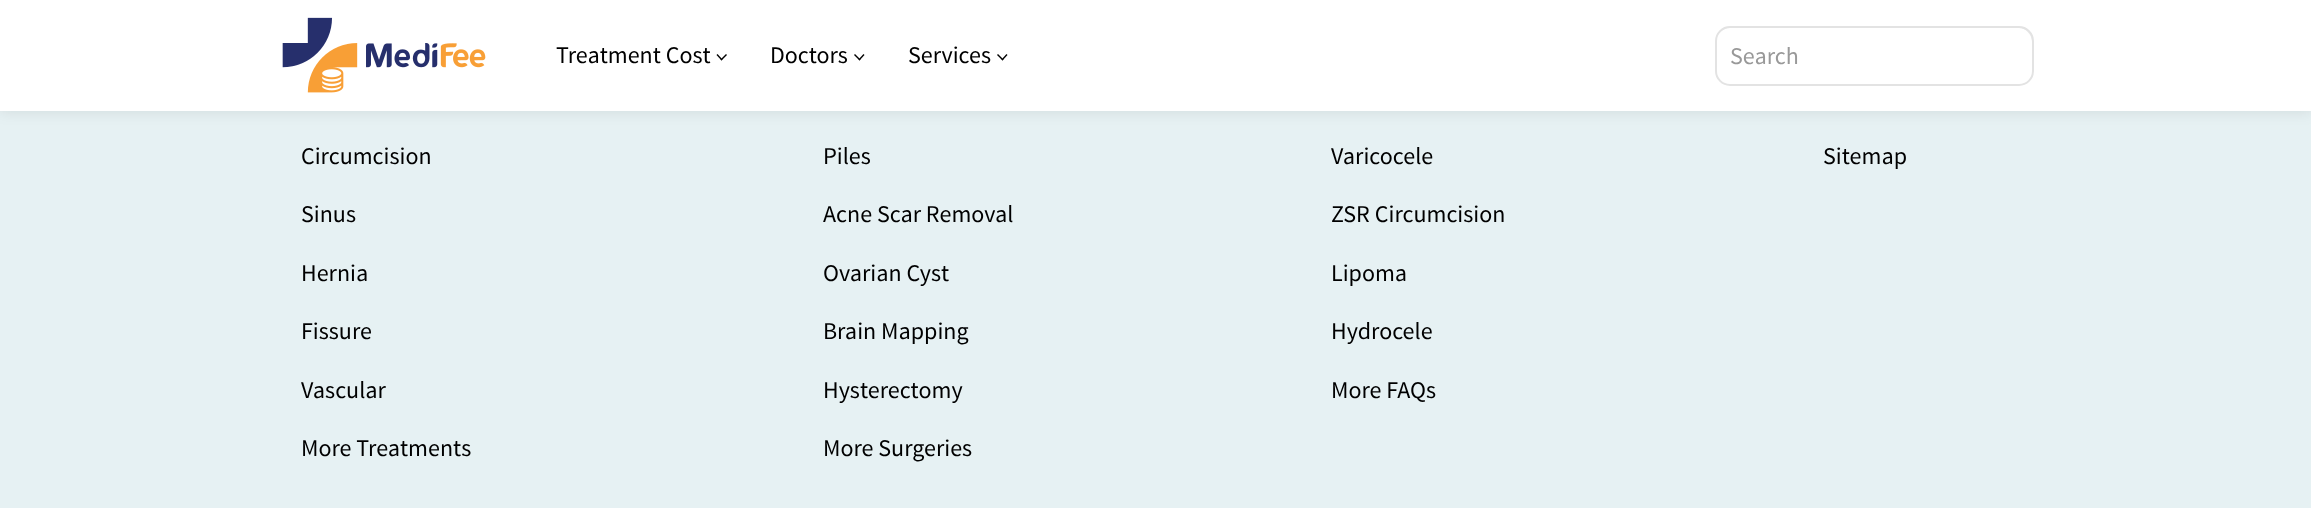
<svg xmlns="http://www.w3.org/2000/svg" width="2311" height="508" viewBox="0 0 2311 508">
  <defs>
    <filter id="blur1" x="-50%" y="-200%" width="200%" height="500%"><feGaussianBlur stdDeviation="7.5"/></filter>
  </defs>
  <rect width="100%" height="100%" fill="#e6f1f3"/>
  <rect x="0" y="0" width="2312" height="111" fill="#000000" fill-opacity="0.1" filter="url(#blur1)"/>
  <rect x="0" y="0" width="2311" height="111" fill="#ffffff"/>
  <image x="282" y="17" width="204" height="76" href="img1.png"/>
  <text x="556" y="63" font-family="Source Sans Pro" font-size="24" fill="#000000">Treatment Cost</text>
  <path d="M726 54L727 55L721.5 60.5L720.5 59.5Z" fill="#000000"/>
  <path d="M717.5 54L722.5 59.5L721.5 60.5L716.5 55Z" fill="#000000"/>
  <text x="770" y="63" font-family="Source Sans Pro" font-size="24" fill="#000000">Doctors</text>
  <path d="M863.5 54L864.5 55L859.5 60.5L858.5 59.5Z" fill="#000000"/>
  <path d="M855 54L860.5 59.5L859.5 60.5L854 55Z" fill="#000000"/>
  <text x="908" y="63" font-family="Source Sans Pro" font-size="24" fill="#000000">Services</text>
  <path d="M1006.5 54L1007.5 55L1002.5 60.5L1001.5 59.5Z" fill="#000000"/>
  <path d="M998 54L1003.5 59.5L1002.5 60.5L997 55Z" fill="#000000"/>
  <path d="M1730 28H2019C2026 28 2032 35 2032 42V72C2032 74 2032 76 2031 78C2032 75 2033 73 2033 70V41C2033 33 2027 27 2019 27H1730C1722 27 1716 33 1716 41V42C1716 35 1722 28 1730 28Z" fill="#ececec"/>
  <rect x="1716" y="27" width="317" height="58" rx="14" fill="none" stroke="#e3e3e3" stroke-width="2"/>
  <text x="1730" y="64" font-family="Source Sans Pro" font-size="24" fill="#999999">Search</text>
  <text x="301" y="164" font-family="Source Sans Pro" font-size="24" fill="#000000">Circumcision</text>
  <text x="301" y="222" font-family="Source Sans Pro" font-size="24" fill="#000000">Sinus</text>
  <text x="301" y="281" font-family="Source Sans Pro" font-size="24" fill="#000000">Hernia</text>
  <text x="301" y="339" font-family="Source Sans Pro" font-size="24" fill="#000000">Fissure</text>
  <text x="301" y="398" font-family="Source Sans Pro" font-size="24" fill="#000000">Vascular</text>
  <text x="301" y="456" font-family="Source Sans Pro" font-size="24" fill="#000000">More Treatments</text>
  <text x="823" y="164" font-family="Source Sans Pro" font-size="24" fill="#000000">Piles</text>
  <text x="823" y="222" font-family="Source Sans Pro" font-size="24" fill="#000000">Acne Scar Removal</text>
  <text x="823" y="281" font-family="Source Sans Pro" font-size="24" fill="#000000">Ovarian Cyst</text>
  <text x="823" y="339" font-family="Source Sans Pro" font-size="24" fill="#000000">Brain Mapping</text>
  <text x="823" y="398" font-family="Source Sans Pro" font-size="24" fill="#000000">Hysterectomy</text>
  <text x="823" y="456" font-family="Source Sans Pro" font-size="24" fill="#000000">More Surgeries</text>
  <text x="1331" y="164" font-family="Source Sans Pro" font-size="24" fill="#000000">Varicocele</text>
  <text x="1331" y="222" font-family="Source Sans Pro" font-size="24" fill="#000000">ZSR Circumcision</text>
  <text x="1331" y="281" font-family="Source Sans Pro" font-size="24" fill="#000000">Lipoma</text>
  <text x="1331" y="339" font-family="Source Sans Pro" font-size="24" fill="#000000">Hydrocele</text>
  <text x="1331" y="398" font-family="Source Sans Pro" font-size="24" fill="#000000">More FAQs</text>
  <text x="1823" y="164" font-family="Source Sans Pro" font-size="24" fill="#000000">Sitemap</text>
</svg>
